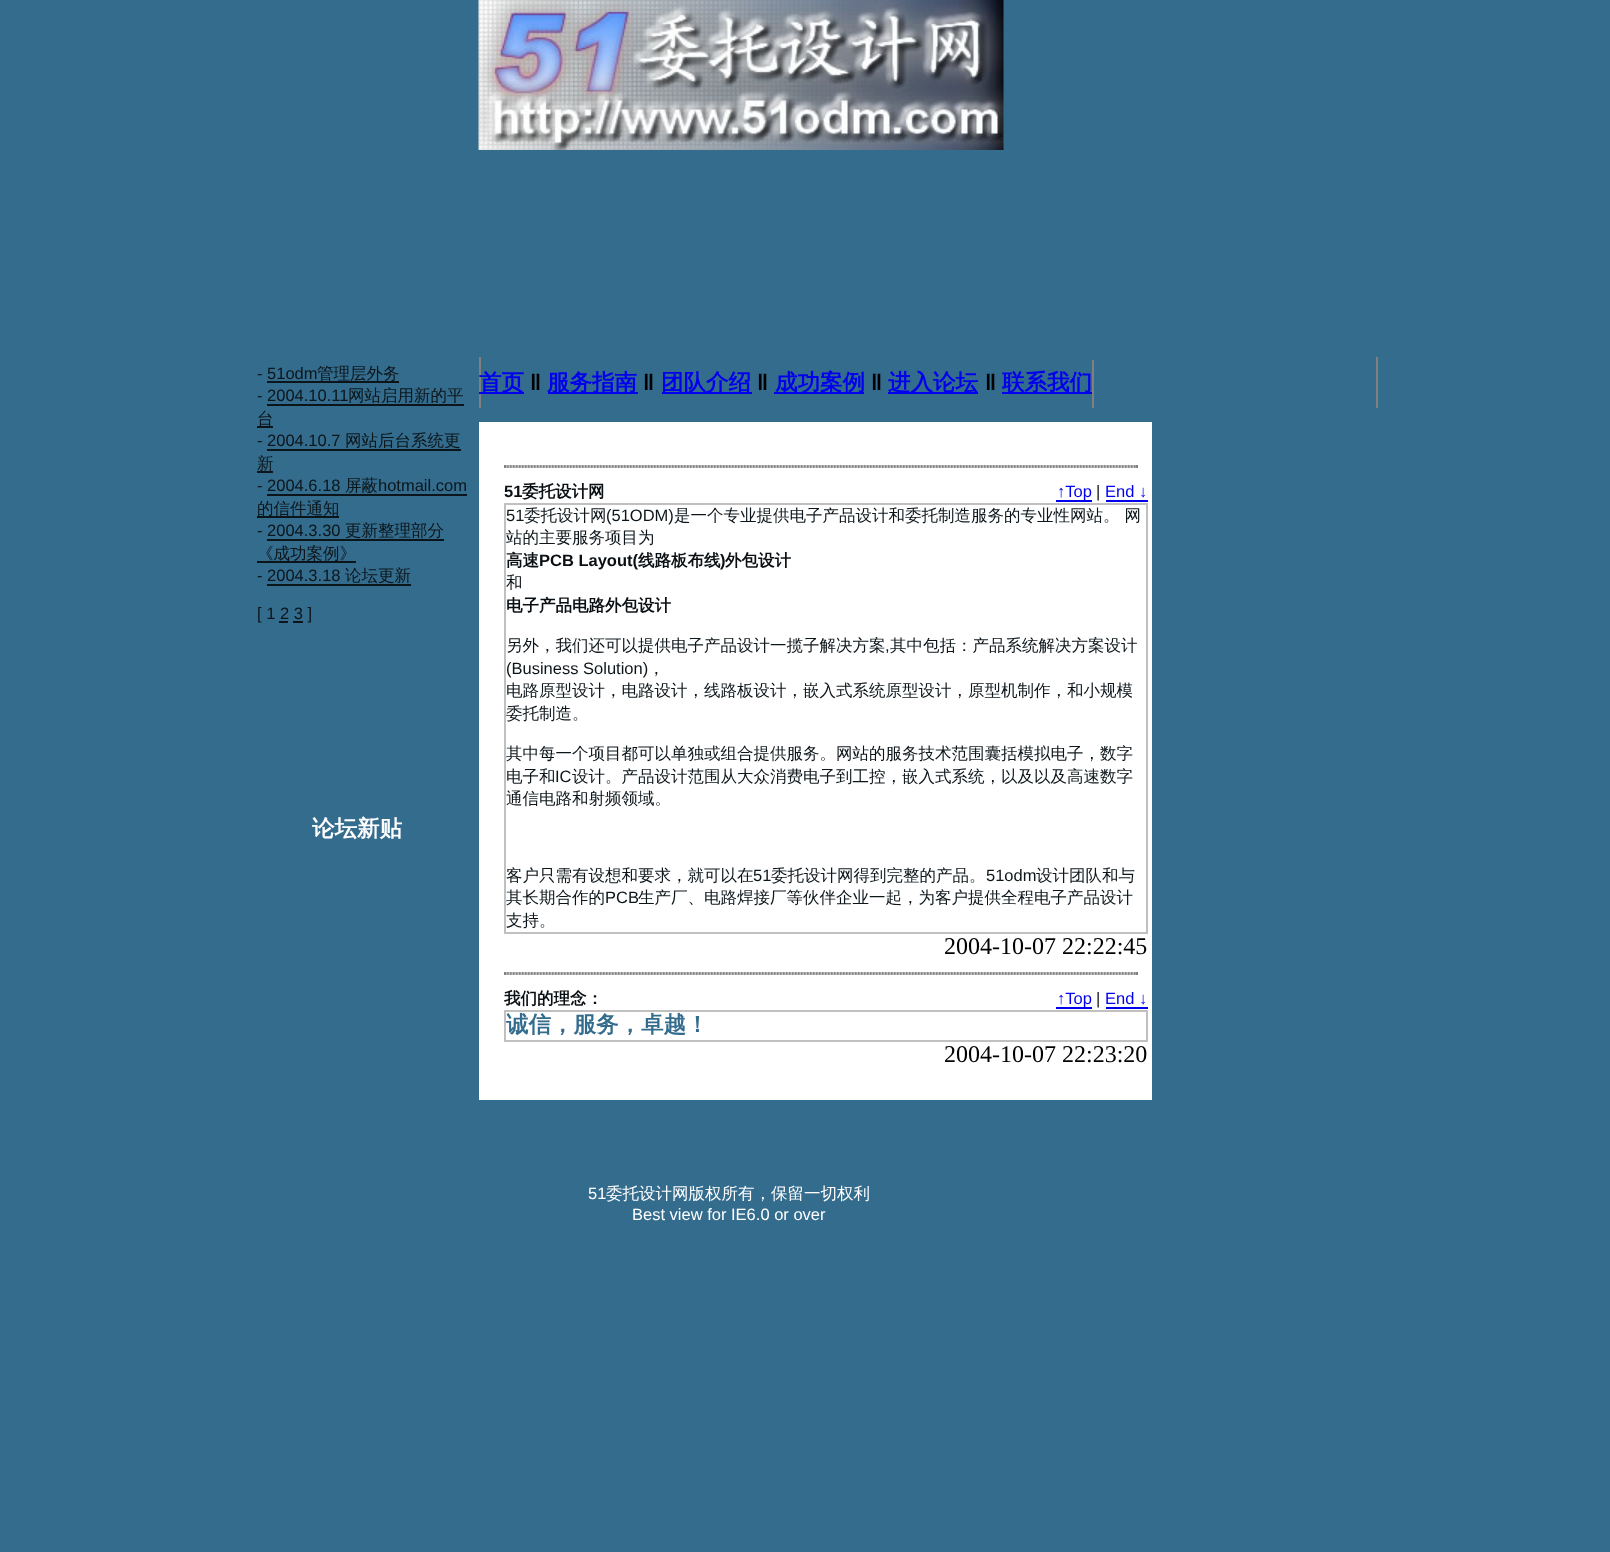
<svg xmlns="http://www.w3.org/2000/svg" width="1610" height="1552" viewBox="0 0 1610 1552">
  <rect width="100%" height="100%" fill="#346c8d"/>
  <text x="257" y="379" font-family="Liberation Sans" font-size="16.5" fill="#0c151a">- 51odm</text>
  <rect x="267" y="381" width="132" height="2" fill="#0c151a"/>
  <text x="317" y="379" font-family="WenQuanYi Zen Hei" font-size="16.5" font-weight="500" fill="#0c151a">管理层外务</text>
  <text x="257" y="401" font-family="Liberation Sans" font-size="16.5" fill="#0c151a">- 2004.10.11</text>
  <rect x="267" y="404" width="197" height="2" fill="#0c151a"/>
  <text x="348" y="401" font-family="WenQuanYi Zen Hei" font-size="16.5" font-weight="500" fill="#0c151a">网站启用新的平</text>
  <text x="257" y="424" font-family="WenQuanYi Zen Hei" font-size="16.5" font-weight="500" fill="#0c151a">台</text>
  <rect x="257" y="426" width="16" height="2" fill="#0c151a"/>
  <text x="257" y="446" font-family="Liberation Sans" font-size="16.5" fill="#0c151a">- 2004.10.7</text>
  <rect x="267" y="449" width="194" height="2" fill="#0c151a"/>
  <text x="345" y="446" font-family="WenQuanYi Zen Hei" font-size="16.5" font-weight="500" fill="#0c151a">网站后台系统更</text>
  <rect x="257" y="471" width="16" height="2" fill="#0c151a"/>
  <text x="257" y="469" font-family="WenQuanYi Zen Hei" font-size="16.5" font-weight="500" fill="#0c151a">新</text>
  <text x="257" y="491" font-family="Liberation Sans" font-size="16.5" fill="#0c151a">- 2004.6.18</text>
  <rect x="267" y="494" width="200" height="2" fill="#0c151a"/>
  <text x="345" y="491" font-family="WenQuanYi Zen Hei" font-size="16.5" font-weight="500" fill="#0c151a">屏蔽</text>
  <text x="378" y="491" font-family="Liberation Sans" font-size="16.5" fill="#0c151a">hotmail.com</text>
  <rect x="257" y="516" width="82" height="2" fill="#0c151a"/>
  <text x="257" y="514" font-family="WenQuanYi Zen Hei" font-size="16.5" font-weight="500" fill="#0c151a">的信件通知</text>
  <text x="257" y="536" font-family="Liberation Sans" font-size="16.5" fill="#0c151a">- 2004.3.30</text>
  <rect x="267" y="539" width="177" height="2" fill="#0c151a"/>
  <text x="345" y="536" font-family="WenQuanYi Zen Hei" font-size="16.5" font-weight="500" fill="#0c151a">更新整理部分</text>
  <rect x="257" y="561" width="99" height="2" fill="#0c151a"/>
  <text x="257" y="559" font-family="WenQuanYi Zen Hei" font-size="16.5" font-weight="500" fill="#0c151a">《成功案例》</text>
  <text x="257" y="581" font-family="Liberation Sans" font-size="16.5" fill="#0c151a">- 2004.3.18</text>
  <rect x="267" y="584" width="144" height="2" fill="#0c151a"/>
  <text x="345" y="581" font-family="WenQuanYi Zen Hei" font-size="16.5" font-weight="500" fill="#0c151a">论坛更新</text>
  <text x="257" y="619" font-family="Liberation Sans" font-size="16.5" fill="#0c151a">[ 1 2 3 ]</text>
  <rect x="279" y="621" width="9" height="2" fill="#0c151a"/>
  <rect x="293" y="621" width="10" height="2" fill="#0c151a"/>
  <text x="312" y="836" font-family="WenQuanYi Zen Hei" font-size="22.5" font-weight="bold" fill="#ffffff">论坛新贴</text>
  <image x="478" y="0" width="526" height="150" href="img1.png"/>
  <rect x="1376" y="357" width="2" height="51" fill="#808080"/>
  <rect x="1092" y="360" width="2" height="48" fill="#808080"/>
  <rect x="479" y="357" width="2" height="51" fill="#808080"/>
  <rect x="479" y="392" width="45" height="2" fill="#0000ee"/>
  <text x="479" y="390" font-family="WenQuanYi Zen Hei" font-size="22.5" font-weight="bold" fill="#0000ee">首页</text>
  <text x="530" y="390" font-family="Liberation Sans" font-size="22.5" font-weight="bold" fill="#000000">‖</text>
  <rect x="548" y="392" width="90" height="2" fill="#0000ee"/>
  <text x="547" y="390" font-family="WenQuanYi Zen Hei" font-size="22.5" font-weight="bold" fill="#0000ee">服务指南</text>
  <text x="643" y="390" font-family="Liberation Sans" font-size="22.5" font-weight="bold" fill="#000000">‖</text>
  <rect x="662" y="392" width="90" height="2" fill="#0000ee"/>
  <text x="661" y="390" font-family="WenQuanYi Zen Hei" font-size="22.5" font-weight="bold" fill="#0000ee">团队介绍</text>
  <text x="757" y="390" font-family="Liberation Sans" font-size="22.5" font-weight="bold" fill="#000000">‖</text>
  <rect x="774" y="392" width="90" height="2" fill="#0000ee"/>
  <text x="775" y="390" font-family="WenQuanYi Zen Hei" font-size="22.5" font-weight="bold" fill="#0000ee">成功案例</text>
  <text x="871" y="390" font-family="Liberation Sans" font-size="22.5" font-weight="bold" fill="#000000">‖</text>
  <rect x="888" y="392" width="90" height="2" fill="#0000ee"/>
  <text x="888" y="390" font-family="WenQuanYi Zen Hei" font-size="22.5" font-weight="bold" fill="#0000ee">进入论坛</text>
  <text x="985" y="390" font-family="Liberation Sans" font-size="22.5" font-weight="bold" fill="#000000">‖</text>
  <rect x="1002" y="392" width="90" height="2" fill="#0000ee"/>
  <text x="1002" y="390" font-family="WenQuanYi Zen Hei" font-size="22.5" font-weight="bold" fill="#0000ee">联系我们</text>
  <rect x="479" y="422" width="673" height="678" fill="#ffffff"/>
  <rect x="504" y="465" width="633" height="3" fill="#c0c0c0"/>
  <path d="M504 466H1137" fill="none" stroke="#808080" stroke-width="1.5" stroke-dasharray="1.5 1.5"/>
  <rect x="1136" y="465" width="2" height="3" fill="#808080"/>
  <path d="M504 467H1137" fill="none" stroke="#808080" stroke-width="1.5" stroke-dasharray="1.5 1.5"/>
  <rect x="504" y="465" width="2" height="3" fill="#808080"/>
  <text x="504" y="497" font-family="Liberation Sans" font-size="16.5" font-weight="bold" fill="#0a0f13">51</text>
  <text x="522" y="497" font-family="WenQuanYi Zen Hei" font-size="16.5" font-weight="bold" fill="#0a0f13">委托设计网</text>
  <rect x="1056" y="500" width="36" height="2" fill="#0000ee"/>
  <text x="1057" y="497" font-family="Liberation Sans" font-size="16.5" fill="#0000ee">↑Top</text>
  <text x="1096" y="497" font-family="Liberation Sans" font-size="16.5" fill="#0c151a">|</text>
  <text x="1105" y="497" font-family="Liberation Sans" font-size="16.5" fill="#0000ee">End ↓</text>
  <rect x="1106" y="500" width="42" height="2" fill="#0000ee"/>
  <rect x="504" y="503" width="644" height="2" fill="#c0c0c0"/>
  <rect x="1146" y="503" width="2" height="430" fill="#c0c0c0"/>
  <rect x="504" y="932" width="644" height="2" fill="#c0c0c0"/>
  <rect x="504" y="503" width="2" height="430" fill="#c0c0c0"/>
  <text x="506" y="521" font-family="Liberation Sans" font-size="16.5" fill="#0c151a">51</text>
  <text x="524" y="521" font-family="WenQuanYi Zen Hei" font-size="16.5" font-weight="500" fill="#0c151a">委托设计网</text>
  <text x="606" y="521" font-family="Liberation Sans" font-size="16.5" fill="#0c151a">(51ODM)</text>
  <text x="674" y="521" font-family="WenQuanYi Zen Hei" font-size="16.5" font-weight="500" fill="#0c151a">是一个专业提供电子产品设计和委托制造服务的专业性网站。 网</text>
  <text x="506" y="543" font-family="WenQuanYi Zen Hei" font-size="16.5" font-weight="500" fill="#0c151a">站的主要服务项目为</text>
  <text x="506" y="566" font-family="WenQuanYi Zen Hei" font-size="16.5" font-weight="bold" fill="#0a0f13">高速</text>
  <text x="539" y="566" font-family="Liberation Sans" font-size="16.5" font-weight="bold" fill="#0a0f13">PCB Layout(</text>
  <text x="638" y="566" font-family="WenQuanYi Zen Hei" font-size="16.5" font-weight="bold" fill="#0a0f13">线路板布线</text>
  <text x="720" y="566" font-family="Liberation Sans" font-size="16.5" font-weight="bold" fill="#0a0f13">)</text>
  <text x="725" y="566" font-family="WenQuanYi Zen Hei" font-size="16.5" font-weight="bold" fill="#0a0f13">外包设计</text>
  <text x="506" y="588" font-family="WenQuanYi Zen Hei" font-size="16.5" font-weight="500" fill="#0c151a">和</text>
  <text x="506" y="611" font-family="WenQuanYi Zen Hei" font-size="16.5" font-weight="bold" fill="#0a0f13">电子产品电路外包设计</text>
  <text x="506" y="651" font-family="WenQuanYi Zen Hei" font-size="16.5" font-weight="500" fill="#0c151a">另外，我们还可以提供电子产品设计一揽子解决方案</text>
  <text x="885" y="651" font-family="Liberation Sans" font-size="16.5" fill="#0c151a">,</text>
  <text x="890" y="651" font-family="WenQuanYi Zen Hei" font-size="16.5" font-weight="500" fill="#0c151a">其中包括：产品系统解决方案设计</text>
  <text x="506" y="674" font-family="Liberation Sans" font-size="16.5" fill="#0c151a">(Business Solution)</text>
  <text x="648" y="674" font-family="WenQuanYi Zen Hei" font-size="16.5" font-weight="500" fill="#0c151a">，</text>
  <text x="506" y="696" font-family="WenQuanYi Zen Hei" font-size="16.5" font-weight="500" fill="#0c151a">电路原型设计，电路设计，线路板设计，嵌入式系统原型设计，原型机制作，和小规模</text>
  <text x="506" y="719" font-family="WenQuanYi Zen Hei" font-size="16.5" font-weight="500" fill="#0c151a">委托制造。</text>
  <text x="506" y="759" font-family="WenQuanYi Zen Hei" font-size="16.5" font-weight="500" fill="#0c151a">其中每一个项目都可以单独或组合提供服务。网站的服务技术范围囊括模拟电子，数字</text>
  <text x="506" y="782" font-family="WenQuanYi Zen Hei" font-size="16.5" font-weight="500" fill="#0c151a">电子和</text>
  <text x="555" y="782" font-family="Liberation Sans" font-size="16.5" fill="#0c151a">IC</text>
  <text x="572" y="782" font-family="WenQuanYi Zen Hei" font-size="16.5" font-weight="500" fill="#0c151a">设计。产品设计范围从大众消费电子到工控，嵌入式系统，以及以及高速数字</text>
  <text x="506" y="804" font-family="WenQuanYi Zen Hei" font-size="16.5" font-weight="500" fill="#0c151a">通信电路和射频领域。</text>
  <text x="506" y="881" font-family="WenQuanYi Zen Hei" font-size="16.5" font-weight="500" fill="#0c151a">客户只需有设想和要求，就可以在</text>
  <text x="753" y="881" font-family="Liberation Sans" font-size="16.5" fill="#0c151a">51</text>
  <text x="771" y="881" font-family="WenQuanYi Zen Hei" font-size="16.5" font-weight="500" fill="#0c151a">委托设计网得到完整的产品。</text>
  <text x="986" y="881" font-family="Liberation Sans" font-size="16.5" fill="#0c151a">51odm</text>
  <text x="1036" y="881" font-family="WenQuanYi Zen Hei" font-size="16.5" font-weight="500" fill="#0c151a">设计团队和与</text>
  <text x="506" y="903" font-family="WenQuanYi Zen Hei" font-size="16.5" font-weight="500" fill="#0c151a">其长期合作的</text>
  <text x="605" y="903" font-family="Liberation Sans" font-size="16.5" fill="#0c151a">PCB</text>
  <text x="638" y="903" font-family="WenQuanYi Zen Hei" font-size="16.5" font-weight="500" fill="#0c151a">生产厂、电路焊接厂等伙伴企业一起，为客户提供全程电子产品设计</text>
  <text x="506" y="926" font-family="WenQuanYi Zen Hei" font-size="16.5" font-weight="500" fill="#0c151a">支持。</text>
  <text x="944" y="954" font-family="Liberation Serif" font-size="24" fill="#000000">2004-10-07 22:22:45</text>
  <rect x="504" y="972" width="633" height="3" fill="#c0c0c0"/>
  <path d="M504 973H1137" fill="none" stroke="#808080" stroke-width="1.5" stroke-dasharray="1.5 1.5"/>
  <rect x="1136" y="972" width="2" height="3" fill="#808080"/>
  <path d="M504 974H1137" fill="none" stroke="#808080" stroke-width="1.5" stroke-dasharray="1.5 1.5"/>
  <rect x="504" y="972" width="2" height="3" fill="#808080"/>
  <text x="504" y="1004" font-family="WenQuanYi Zen Hei" font-size="16.5" font-weight="bold" fill="#0a0f13">我们的理念：</text>
  <rect x="1056" y="1007" width="36" height="2" fill="#0000ee"/>
  <text x="1057" y="1004" font-family="Liberation Sans" font-size="16.5" fill="#0000ee">↑Top</text>
  <text x="1096" y="1004" font-family="Liberation Sans" font-size="16.5" fill="#0c151a">|</text>
  <text x="1105" y="1004" font-family="Liberation Sans" font-size="16.5" fill="#0000ee">End ↓</text>
  <rect x="1106" y="1007" width="42" height="2" fill="#0000ee"/>
  <rect x="504" y="1010" width="644" height="2" fill="#c0c0c0"/>
  <rect x="1146" y="1010" width="2" height="31" fill="#c0c0c0"/>
  <rect x="504" y="1040" width="644" height="2" fill="#c0c0c0"/>
  <rect x="504" y="1010" width="2" height="31" fill="#c0c0c0"/>
  <text x="506" y="1032" font-family="WenQuanYi Zen Hei" font-size="22.5" font-weight="bold" fill="#346c8d">诚信，服务，卓越！</text>
  <text x="944" y="1062" font-family="Liberation Serif" font-size="24" fill="#000000">2004-10-07 22:23:20</text>
  <text x="588" y="1199" font-family="Liberation Sans" font-size="16.5" fill="#ffffff">51</text>
  <text x="606" y="1199" font-family="WenQuanYi Zen Hei" font-size="16.5" font-weight="500" fill="#ffffff">委托设计网版权所有，保留一切权利</text>
  <text x="632" y="1220" font-family="Liberation Sans" font-size="16.5" fill="#ffffff">Best view for IE6.0 or over</text>
</svg>
